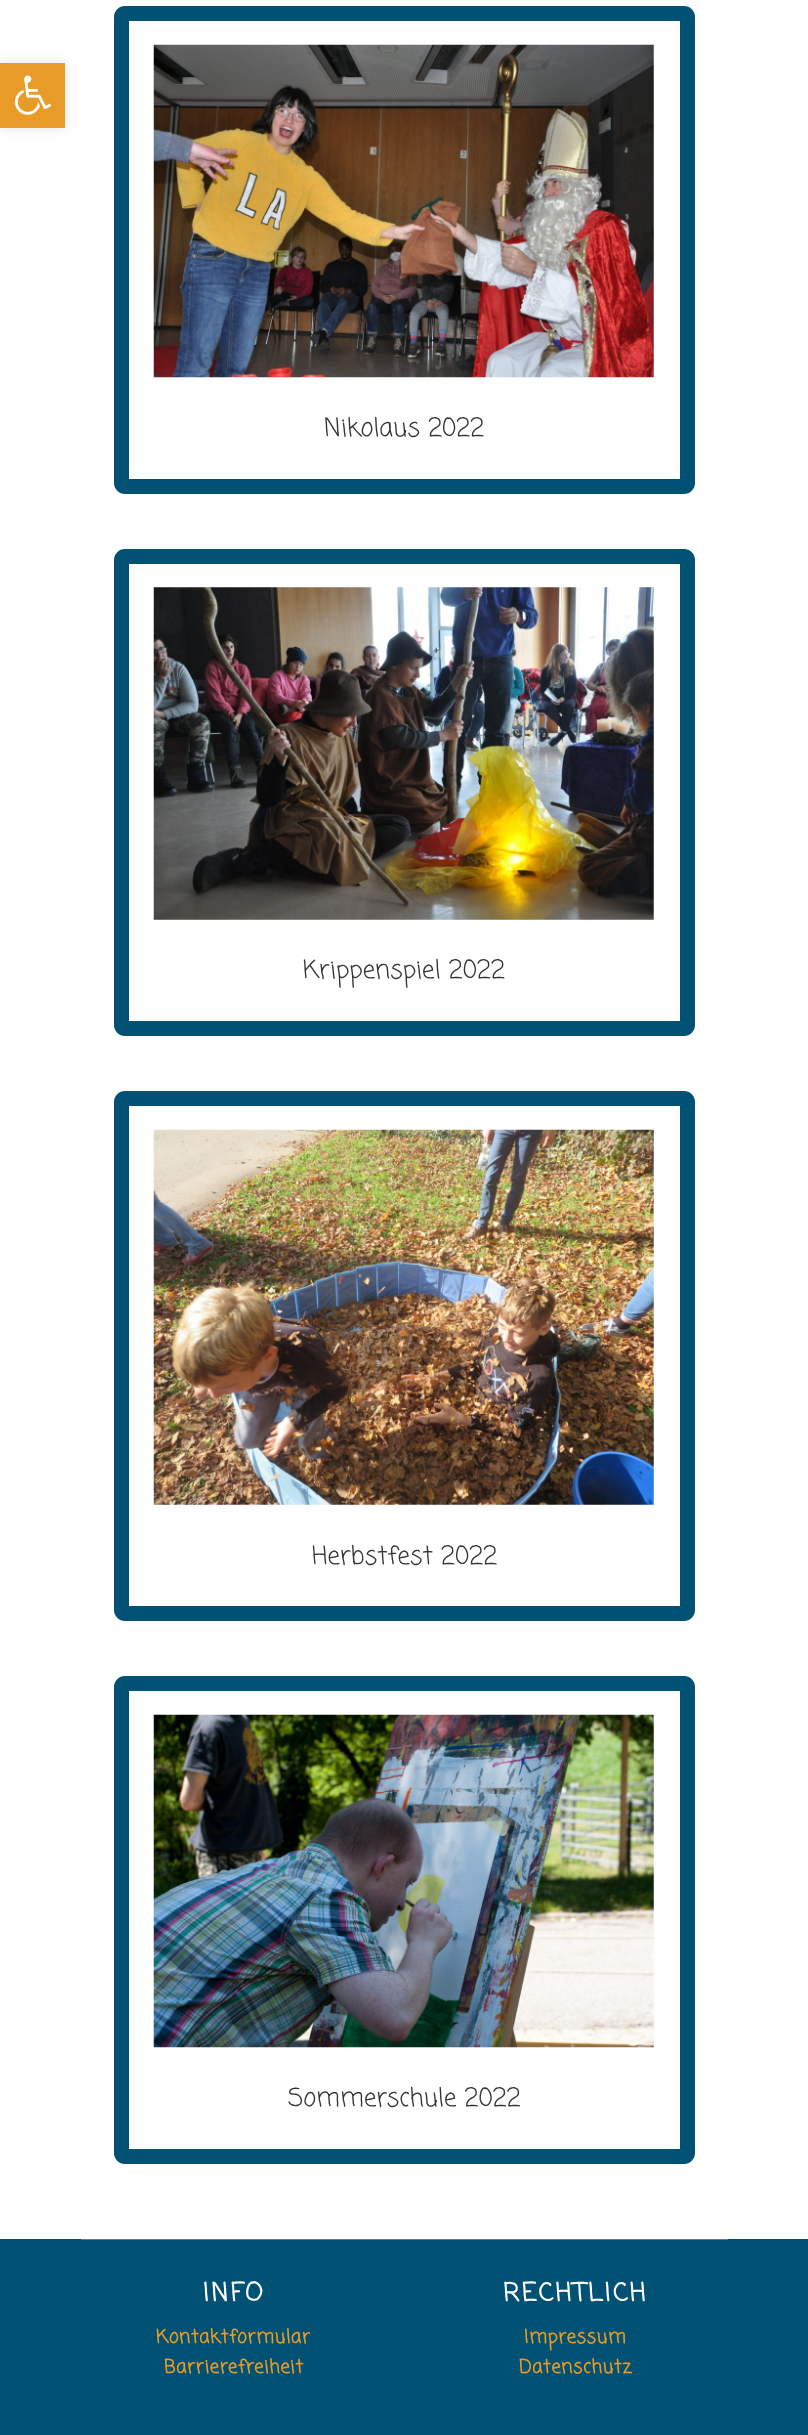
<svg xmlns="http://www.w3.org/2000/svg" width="808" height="2435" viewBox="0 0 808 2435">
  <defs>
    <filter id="blur1" x="-50%" y="-200%" width="200%" height="500%"><feGaussianBlur stdDeviation="6"/></filter>
  </defs>
  <rect width="100%" height="100%" fill="#ffffff"/>
  <rect x="0" y="63" width="65" height="65" fill="#000000" fill-opacity="0.1" filter="url(#blur1)"/>
  <rect x="0" y="63" width="65" height="65" fill="#e89b26"/>
  <image x="14" y="75" width="38" height="40" href="img1.png"/>
  <rect x="121.5" y="13.5" width="566" height="473" rx="3.5" fill="none" stroke="#005174" stroke-width="15"/>
  <image x="153" y="44" width="501" height="334" href="img2.png"/>
  <text x="324" y="436" font-family="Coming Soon" font-size="25" fill="#333333">Nikolaus 2022</text>
  <rect x="121.5" y="556.5" width="566" height="472" rx="3.5" fill="none" stroke="#005174" stroke-width="15"/>
  <image x="153" y="587" width="501" height="333" href="img3.png"/>
  <text x="303" y="978" font-family="Coming Soon" font-size="25" fill="#333333">Krippenspiel 2022</text>
  <rect x="121.5" y="1098.5" width="566" height="515" rx="3.5" fill="none" stroke="#005174" stroke-width="15"/>
  <image x="153" y="1129" width="501" height="376" href="img4.png"/>
  <text x="312" y="1564" font-family="Coming Soon" font-size="25" fill="#333333">Herbstfest 2022</text>
  <rect x="121.5" y="1683.5" width="566" height="473" rx="3.5" fill="none" stroke="#005174" stroke-width="15"/>
  <image x="153" y="1714" width="501" height="334" href="img5.png"/>
  <text x="288" y="2106" font-family="Coming Soon" font-size="25" fill="#333333">Sommerschule 2022</text>
  <rect x="0" y="2239" width="808" height="196" fill="#005174"/>
  <rect x="81" y="2239" width="647" height="1" fill="#757575"/>
  <text x="203" y="2301" font-family="Coming Soon" font-size="25" font-weight="bold" letter-spacing="2.5" fill="#ffffff">INFO</text>
  <text x="156" y="2343" font-family="Coming Soon" font-size="18.75" font-weight="bold" letter-spacing="0.6" fill="#e89b26">Kontaktformular</text>
  <text x="164" y="2373" font-family="Coming Soon" font-size="18.75" font-weight="bold" letter-spacing="0.6" fill="#e89b26">Barrierefreiheit</text>
  <text x="503" y="2301" font-family="Coming Soon" font-size="25" font-weight="bold" letter-spacing="2.5" fill="#ffffff">RECHTLICH</text>
  <text x="524" y="2343" font-family="Coming Soon" font-size="18.75" font-weight="bold" letter-spacing="0.6" fill="#e89b26">Impressum</text>
  <text x="519" y="2373" font-family="Coming Soon" font-size="18.75" font-weight="bold" letter-spacing="0.6" fill="#e89b26">Datenschutz</text>
</svg>
